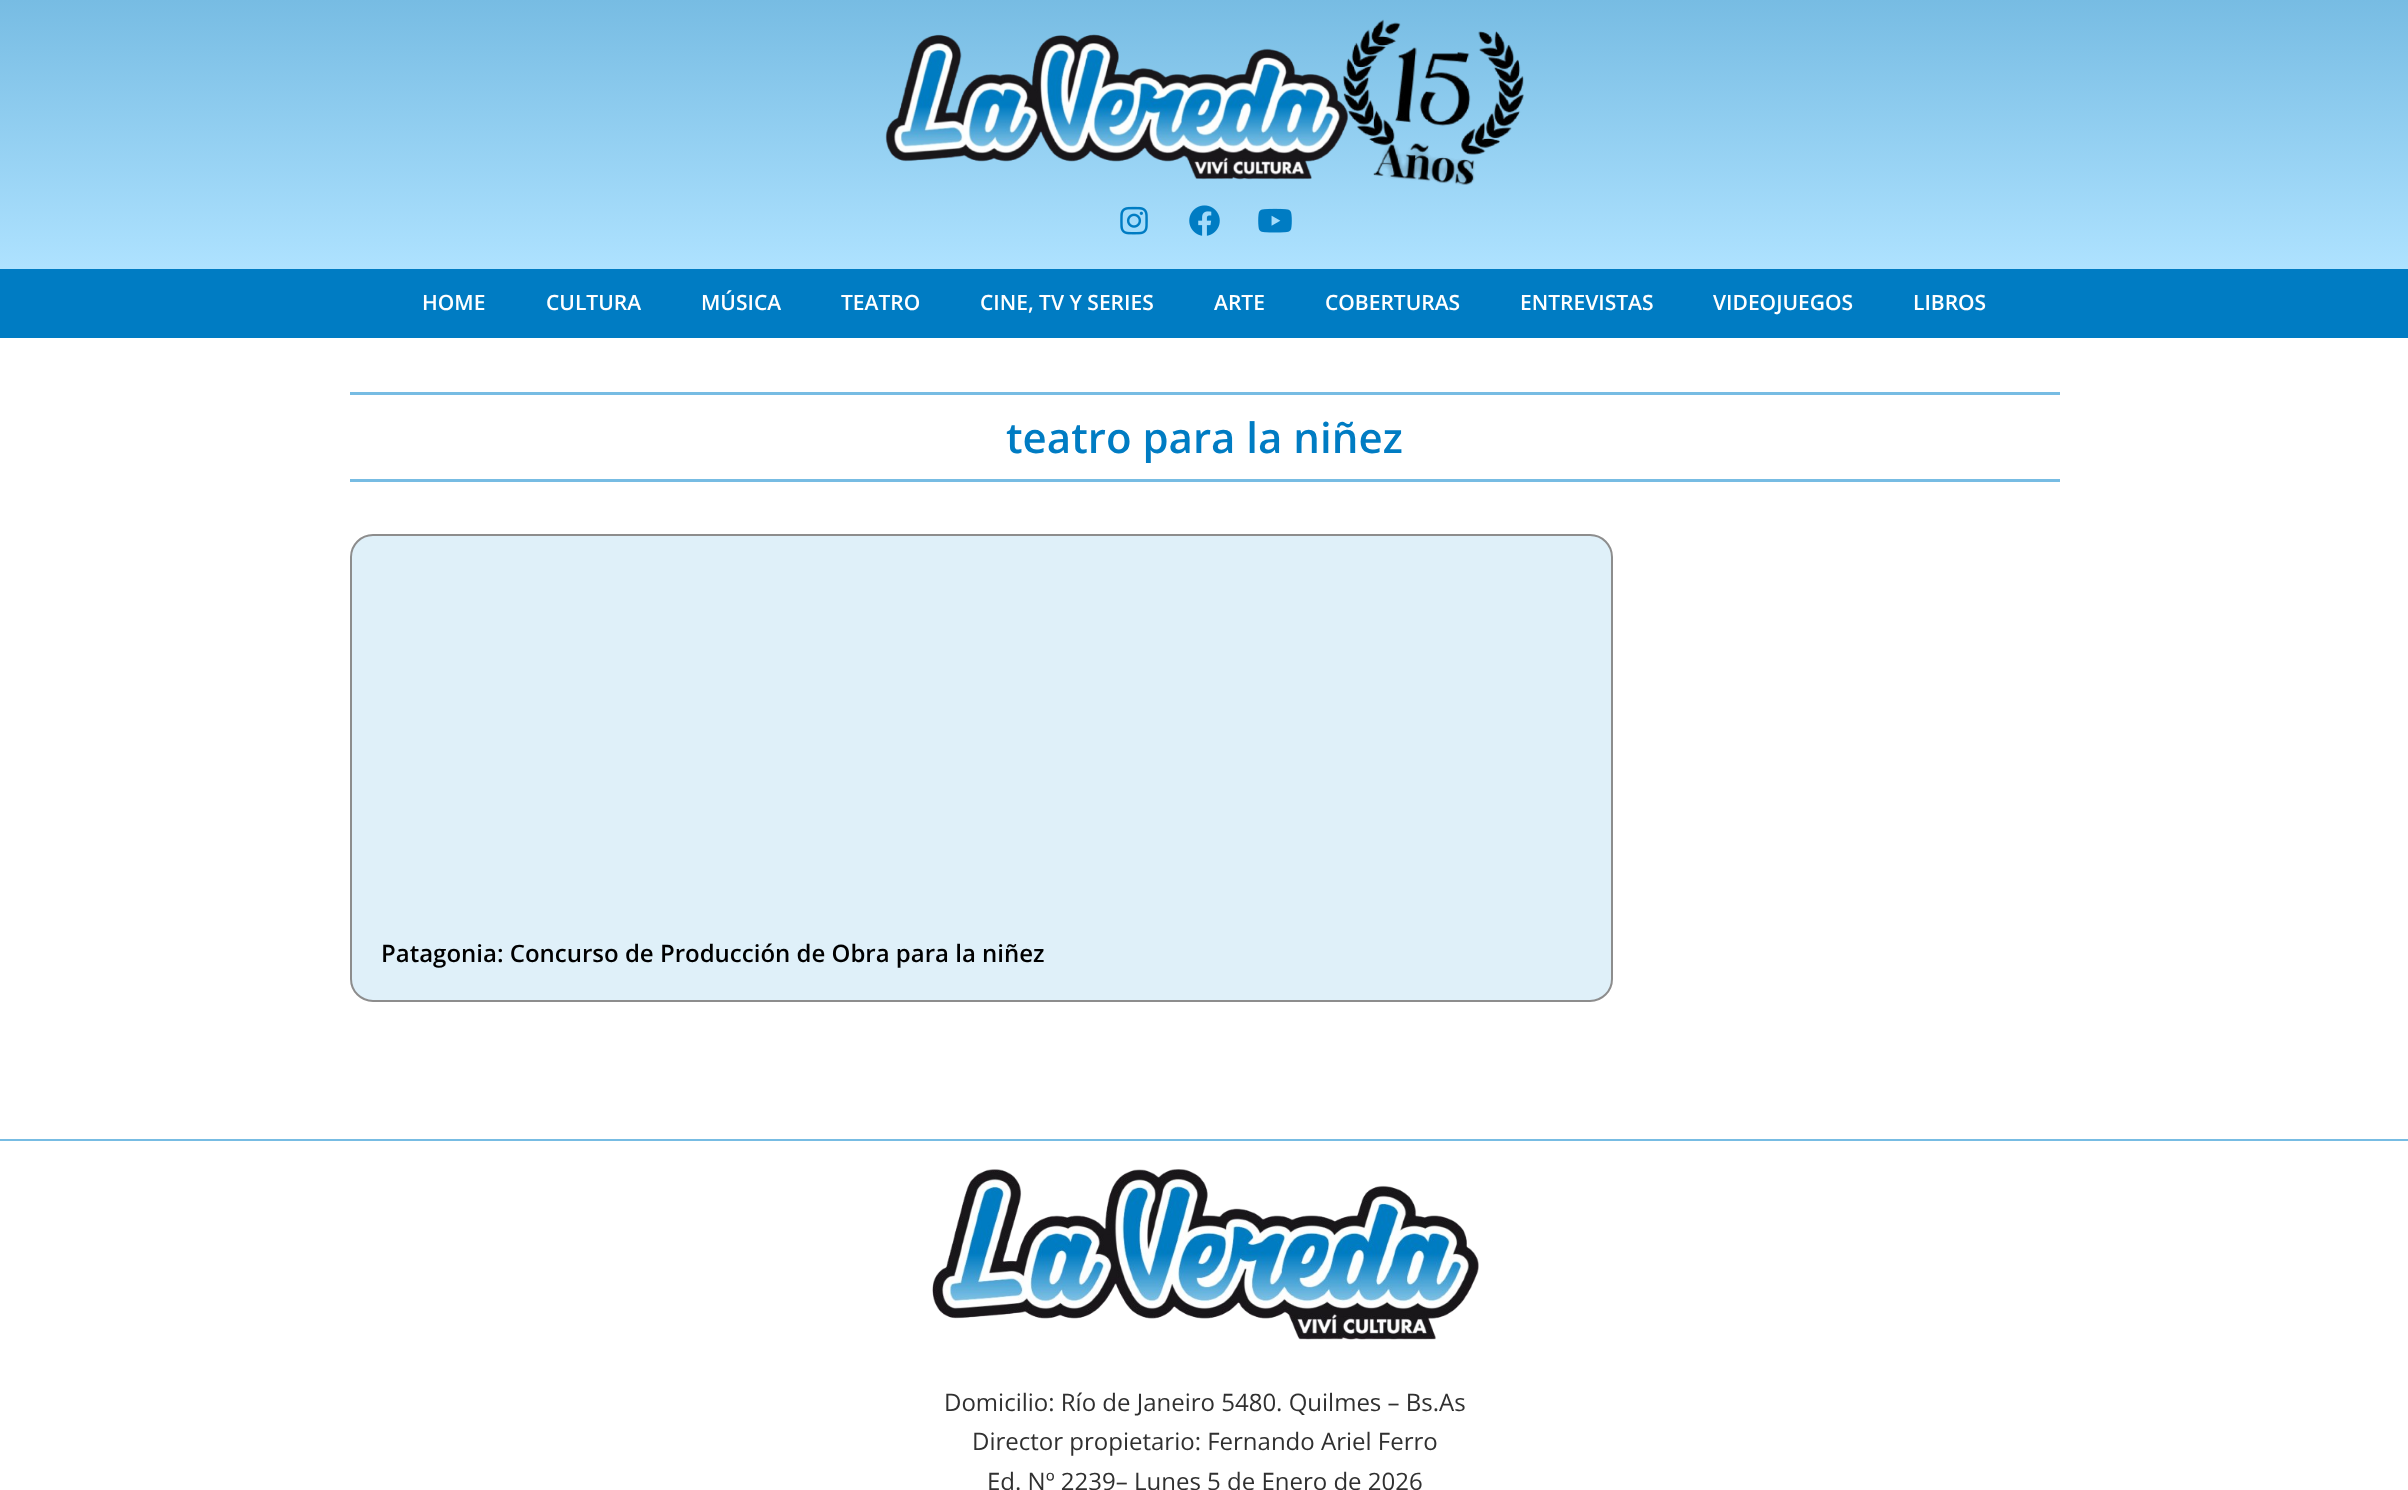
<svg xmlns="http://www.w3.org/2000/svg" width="2408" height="1490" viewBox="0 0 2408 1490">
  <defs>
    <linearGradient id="g1" gradientUnits="userSpaceOnUse" x1="1205" y1="0" x2="1205" y2="269"><stop offset="0" stop-color="#77bce3"/><stop offset="1" stop-color="#aee2ff"/></linearGradient>
  </defs>
  <rect width="100%" height="100%" fill="#ffffff"/>
  <rect x="0" y="0" width="2408" height="269" fill="url(#g1)"/>
  <image x="885" y="19" width="639" height="166" href="img1.png"/>
  <image x="1120" y="206" width="28" height="29" href="img2.png"/>
  <image x="1189" y="205" width="31" height="31" href="img3.png"/>
  <image x="1258" y="208" width="34" height="25" href="img4.png"/>
  <rect x="0" y="269" width="2408" height="69" fill="#007cc3"/>
  <text x="422" y="310" font-family="Open Sans" font-size="21" font-weight="600" fill="#ffffff">HOME</text>
  <text x="546" y="310" font-family="Open Sans" font-size="21" font-weight="600" fill="#ffffff">CULTURA</text>
  <text x="701" y="310" font-family="Open Sans" font-size="21" font-weight="600" fill="#ffffff">MÚSICA</text>
  <text x="841" y="310" font-family="Open Sans" font-size="21" font-weight="600" fill="#ffffff">TEATRO</text>
  <text x="980" y="310" font-family="Open Sans" font-size="21" font-weight="600" fill="#ffffff">CINE, TV Y SERIES</text>
  <text x="1214" y="310" font-family="Open Sans" font-size="21" font-weight="600" fill="#ffffff">ARTE</text>
  <text x="1325" y="310" font-family="Open Sans" font-size="21" font-weight="600" fill="#ffffff">COBERTURAS</text>
  <text x="1520" y="310" font-family="Open Sans" font-size="21" font-weight="600" fill="#ffffff">ENTREVISTAS</text>
  <text x="1713" y="310" font-family="Open Sans" font-size="21" font-weight="600" fill="#ffffff">VIDEOJUEGOS</text>
  <text x="1913" y="310" font-family="Open Sans" font-size="21" font-weight="600" fill="#ffffff">LIBROS</text>
  <rect x="350" y="392" width="1710" height="3" fill="#77bce3"/>
  <rect x="350" y="479" width="1710" height="3" fill="#77bce3"/>
  <text x="1006" y="453" font-family="Open Sans" font-size="42" font-weight="600" fill="#007cc3">teatro para la niñez</text>
  <rect x="351" y="535" width="1261" height="466" rx="22" fill="#dff0f9" stroke="#8d8d8d" stroke-width="2"/>
  <text x="381" y="962" font-family="Open Sans" font-size="24" font-weight="600" fill="#000000">Patagonia: Concurso de Producción de Obra para la niñez</text>
  <rect x="0" y="1139" width="2408" height="2" fill="#77bce3"/>
  <image x="932" y="1169" width="547" height="171" href="img5.png"/>
  <text x="944" y="1411" font-family="Open Sans" font-size="24" fill="#303030">Domicilio: Río de Janeiro 5480. Quilmes – Bs.As</text>
  <text x="972" y="1450" font-family="Open Sans" font-size="24" fill="#303030">Director propietario: Fernando Ariel Ferro</text>
  <text x="987" y="1490" font-family="Open Sans" font-size="24" fill="#303030">Ed. Nº 2239– Lunes 5 de Enero de 2026</text>
</svg>
